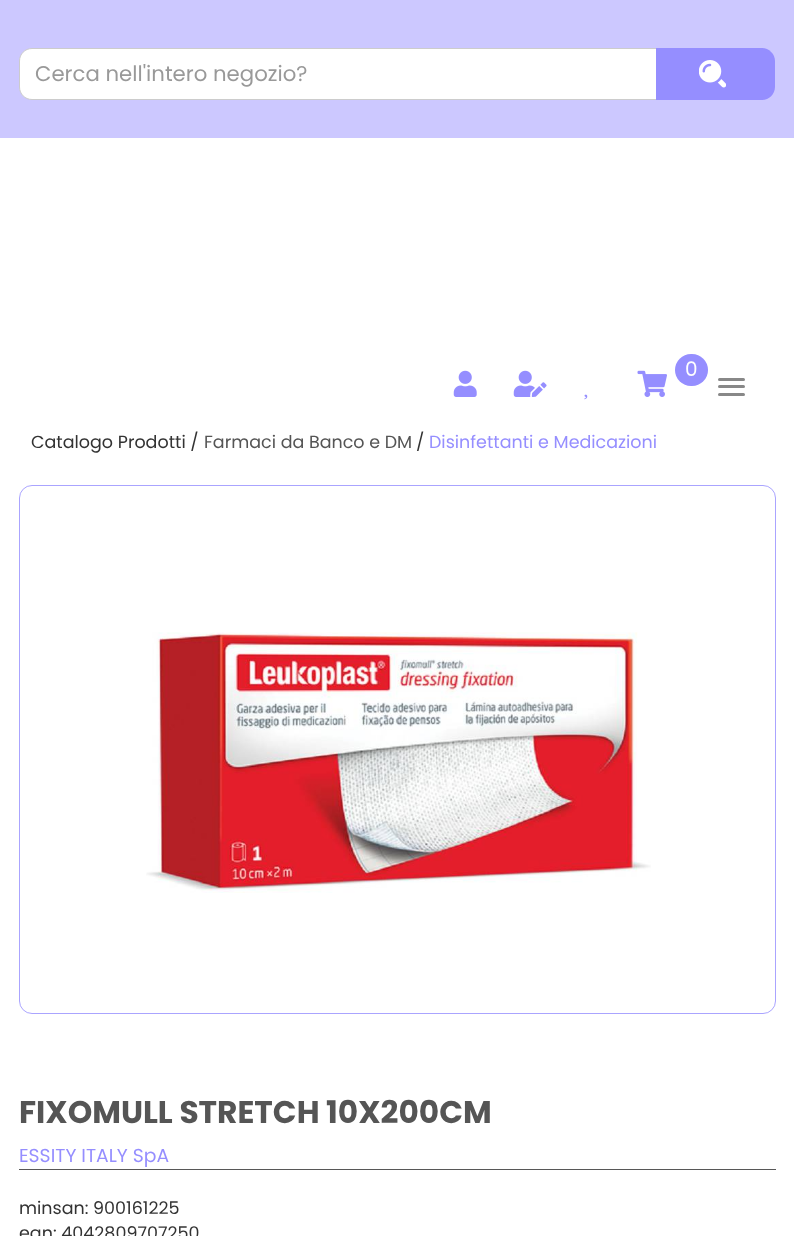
<svg xmlns="http://www.w3.org/2000/svg" width="794" height="1236" viewBox="0 0 794 1236">
  <rect width="100%" height="100%" fill="#ffffff"/>
  <rect x="0" y="0" width="794" height="138" fill="#ccc8ff"/>
  <path d="M32 48.5H657.5V99.5H32C25 99.5 19.5 94 19.5 87V61C19.5 54 25 48.5 32 48.5Z" fill="#ffffff" stroke="#cccccc"/>
  <text x="35" y="81" font-family="Poppins" font-size="21.25" fill="#999999">Cerca nell'intero negozio?</text>
  <path d="M656 48H762C769 48 775 54 775 61V87C775 94 769 100 762 100H656Z" fill="#958eff"/>
  <image x="699" y="60" width="27" height="28" href="img1.png"/>
  <rect x="675" y="354" width="33" height="32" rx="16" fill="#958eff"/>
  <text x="685" y="376" font-family="Poppins" font-size="20" fill="#ffffff">0</text>
  <image x="637" y="370" width="30" height="27" href="img2.png"/>
  <image x="453" y="370" width="24" height="27" href="img3.png"/>
  <image x="513" y="370" width="34" height="27" href="img4.png"/>
  <rect x="718" y="378" width="27" height="3" rx="1.5" fill="#888888"/>
  <rect x="718" y="385" width="27" height="3" rx="1.5" fill="#888888"/>
  <rect x="718" y="393" width="27" height="3" rx="1.5" fill="#888888"/>
  <image x="584" y="394" width="4" height="6" href="img5.png"/>
  <text x="31" y="448" font-family="Poppins" font-size="17.5" fill="#333333">Catalogo Prodotti /</text>
  <text x="204" y="448" font-family="Poppins" font-size="17.5" fill="#555555">Farmaci da Banco e DM</text>
  <text x="416" y="448" font-family="Poppins" font-size="17.5" fill="#333333">/</text>
  <text x="429" y="448" font-family="Poppins" font-size="17.5" fill="#958eff">Disinfettanti e Medicazioni</text>
  <rect x="19.5" y="485.5" width="756" height="528" rx="12.5" fill="none" stroke="#aaa4ff"/>
  <image x="146" y="632" width="505" height="261" href="img6.png"/>
  <text x="19" y="1123" font-family="Poppins" font-size="31.25" font-weight="bold" fill="#555555">FIXOMULL STRETCH 10X200CM</text>
  <text x="19" y="1162" font-family="Poppins" font-size="18.75" fill="#958eff">ESSITY ITALY SpA</text>
  <rect x="19" y="1169" width="757" height="1" fill="#575757"/>
  <text x="19" y="1214" font-family="Poppins" font-size="17.5" fill="#333333">minsan: 900161225</text>
  <text x="19" y="1239" font-family="Poppins" font-size="17.5" fill="#333333">ean: 4042809707250</text>
</svg>
